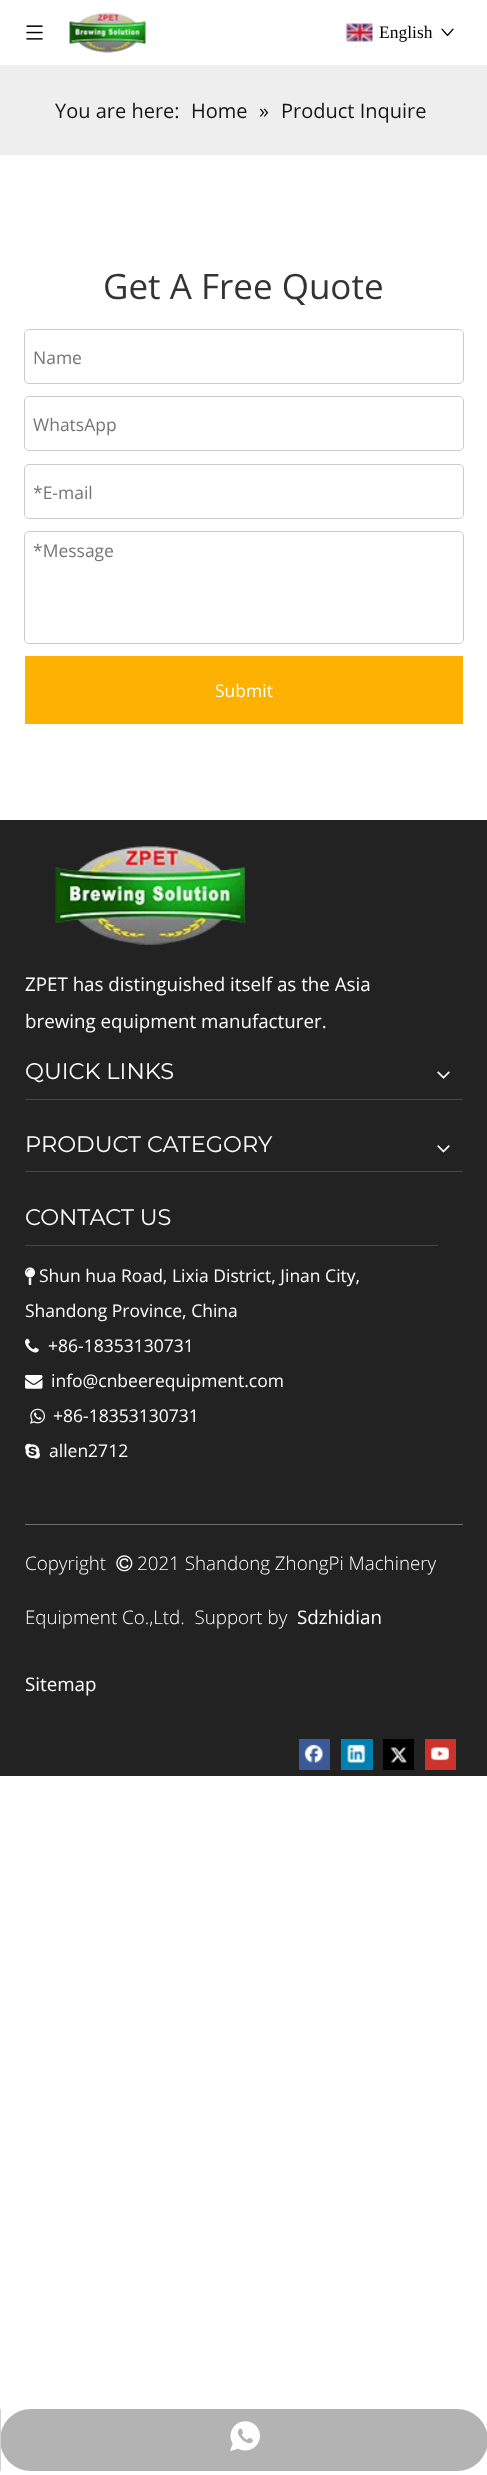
<svg xmlns="http://www.w3.org/2000/svg" width="487" height="2475" viewBox="0 0 487 2475">
  <rect width="100%" height="100%" fill="#ffffff"/>
  <image x="26" y="25" width="17" height="15" href="img1.png"/>
  <image x="69" y="12" width="77" height="41" href="img2.png"/>
  <image x="345" y="23" width="28" height="19" href="img3.png"/>
  <text x="379" y="38" font-family="Liberation Serif" font-size="17.5" fill="#000000">English</text>
  <image x="441" y="28" width="13" height="9" href="img4.png"/>
  <rect x="0" y="65" width="487" height="90" fill="#eeeeee"/>
  <text x="55" y="118" font-family="Open Sans" font-size="20" fill="#161616">You are here:</text>
  <text x="191" y="118" font-family="Open Sans" font-size="20" fill="#161616">Home</text>
  <text x="259" y="118" font-family="Open Sans" font-size="20" fill="#161616">»</text>
  <text x="281" y="118" font-family="Open Sans" font-size="20" fill="#161616">Product Inquire</text>
  <text x="103" y="299" font-family="Open Sans" font-size="35" fill="#333333">Get A Free Quote</text>
  <rect x="24.5" y="329.5" width="439" height="54" rx="4.5" fill="none" stroke="#cccccc"/>
  <text x="33" y="364" font-family="Open Sans" font-size="17.5" fill="#757575">Name</text>
  <rect x="24.5" y="396.5" width="439" height="54" rx="4.5" fill="none" stroke="#cccccc"/>
  <text x="33" y="431" font-family="Open Sans" font-size="17.5" fill="#757575">WhatsApp</text>
  <rect x="24.5" y="464.5" width="439" height="54" rx="4.5" fill="none" stroke="#cccccc"/>
  <text x="33" y="499" font-family="Open Sans" font-size="17.5" fill="#757575">*E-mail</text>
  <rect x="24.5" y="531.5" width="439" height="112" rx="4.5" fill="none" stroke="#cccccc"/>
  <text x="33" y="557" font-family="Open Sans" font-size="17.5" fill="#757575">*Message</text>
  <rect x="25" y="656" width="438" height="68" fill="#fdb100"/>
  <text x="215" y="697" font-family="Open Sans" font-size="17.5" fill="#ffffff">Submit</text>
  <rect x="0" y="820" width="487" height="956" fill="#222222"/>
  <image x="55" y="846" width="191" height="99" href="img5.png"/>
  <text x="25" y="991" font-family="Open Sans" font-size="18.75" fill="#ffffff">ZPET has distinguished itself as the Asia</text>
  <text x="25" y="1028" font-family="Open Sans" font-size="18.75" fill="#ffffff">brewing equipment manufacturer.</text>
  <rect x="25" y="1099" width="438" height="1" fill="#454545"/>
  <text x="25" y="1079" font-family="Montserrat" font-size="22.5" font-weight="100" fill="#ffffff">QUICK LINKS</text>
  <image x="437" y="1071" width="13" height="8" href="img6.png"/>
  <rect x="25" y="1171" width="438" height="1" fill="#454545"/>
  <text x="25" y="1152" font-family="Montserrat" font-size="22.5" font-weight="100" fill="#ffffff">PRODUCT CATEGORY</text>
  <image x="437" y="1145" width="13" height="8" href="img7.png"/>
  <rect x="25" y="1245" width="413" height="1" fill="#454545"/>
  <text x="25" y="1225" font-family="Montserrat" font-size="22.5" font-weight="100" fill="#ffffff">CONTACT US</text>
  <image x="25" y="1267" width="10" height="18" href="img8.png"/>
  <text x="39" y="1282" font-family="Open Sans" font-size="17.5" fill="#ffffff">Shun hua Road, Lixia District, Jinan City,</text>
  <text x="25" y="1317" font-family="Open Sans" font-size="17.5" fill="#ffffff">Shandong Province, China</text>
  <image x="25" y="1338" width="14" height="15" href="img9.png"/>
  <text x="48" y="1352" font-family="Open Sans" font-size="17.5" fill="#ffffff">+86-18353130731</text>
  <image x="25" y="1375" width="18" height="14" href="img10.png"/>
  <text x="51" y="1387" font-family="Open Sans" font-size="17.5" fill="#ffffff">info@cnbeerequipment.com</text>
  <image x="30" y="1408" width="15" height="16" href="img11.png"/>
  <text x="53" y="1422" font-family="Open Sans" font-size="17.5" fill="#ffffff">+86-18353130731</text>
  <image x="25" y="1443" width="15" height="16" href="img12.png"/>
  <text x="49" y="1457" font-family="Open Sans" font-size="17.5" fill="#ffffff">allen2712</text>
  <rect x="0" y="2409" width="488" height="62" rx="31" fill="#b3b3b3"/>
  <rect x="0" y="2409" width="1" height="62" fill="#d3d3d3"/>
  <image x="230" y="2421" width="30" height="31" href="img13.png"/>
  <rect x="25" y="1524" width="438" height="1" fill="#6d6d6d"/>
  <text x="25" y="1570" font-family="Open Sans" font-size="18.75" font-weight="300" fill="#ffffff">Copyright</text>
  <image x="116" y="1555" width="17" height="17" href="img14.png"/>
  <text x="137" y="1570" font-family="Open Sans" font-size="18.75" font-weight="300" fill="#ffffff">2021 Shandong ZhongPi Machinery</text>
  <text x="25" y="1624" font-family="Open Sans" font-size="18.75" font-weight="300" fill="#ffffff" xml:space="preserve">Equipment Co.,Ltd.  Support by</text>
  <text x="297" y="1624" font-family="Open Sans" font-size="18.75" fill="#ffffff">Sdzhidian</text>
  <text x="25" y="1691" font-family="Open Sans" font-size="18.75" fill="#ffffff">Sitemap</text>
  <rect x="299" y="1739" width="31" height="31" fill="#3b5998"/>
  <image x="304" y="1744" width="19" height="19" href="img15.png"/>
  <rect x="341" y="1739" width="32" height="31" fill="#007fb1"/>
  <image x="347" y="1744" width="19" height="19" href="img16.png"/>
  <rect x="383" y="1739" width="31" height="31" fill="#000000"/>
  <image x="390" y="1747" width="18" height="16" href="img17.png"/>
  <rect x="425" y="1739" width="31" height="31" fill="#cd332d"/>
  <image x="431" y="1747" width="18" height="14" href="img18.png"/>
</svg>
